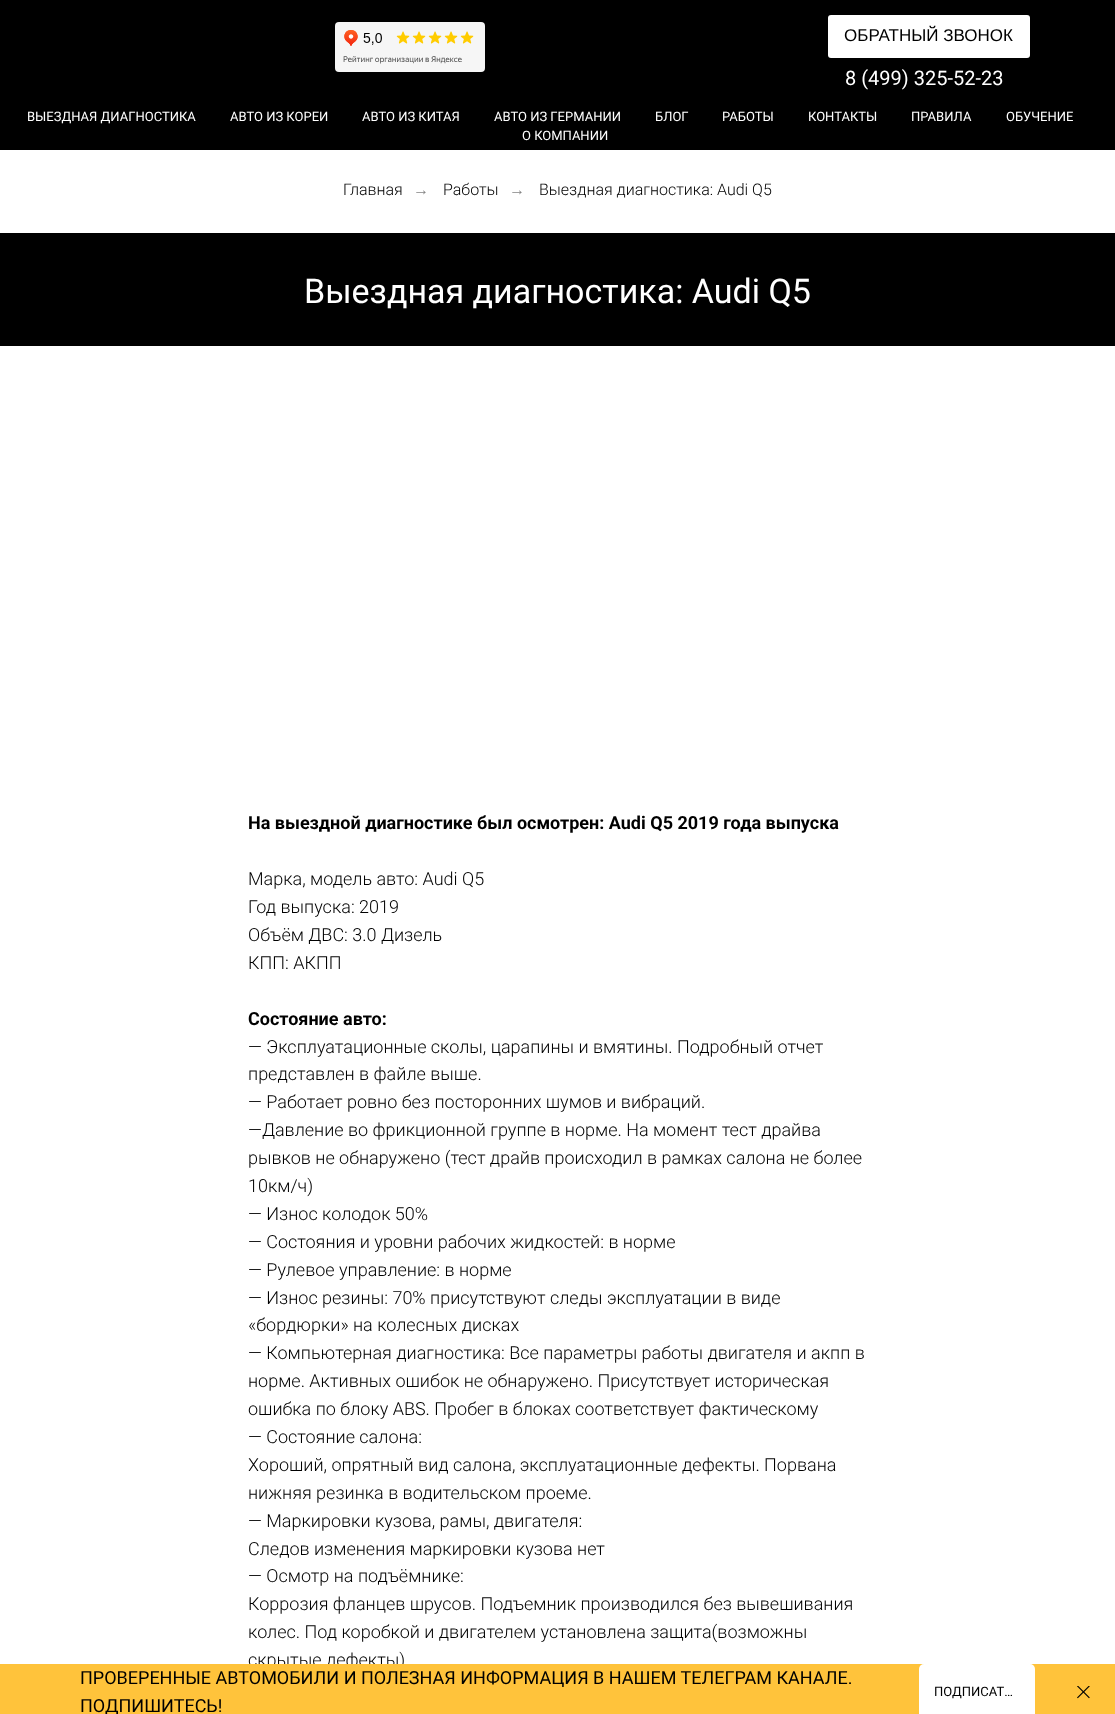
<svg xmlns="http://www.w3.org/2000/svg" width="1115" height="1714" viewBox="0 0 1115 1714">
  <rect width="100%" height="100%" fill="#ffffff"/>
  <rect x="0" y="0" width="1115" height="150" fill="#000000"/>
  <image x="335" y="22" width="150" height="50" href="img1.png"/>
  <rect x="828" y="15" width="202" height="43" rx="3" fill="#ffffff"/>
  <text x="844" y="41" font-family="Liberation Sans" font-size="17" fill="#000000">ОБРАТНЫЙ ЗВОНОК</text>
  <text x="845" y="85" font-family="Roboto" font-size="20" fill="#ffffff">8 (499) 325-52-23</text>
  <text x="27" y="121" font-family="Roboto" font-size="13" fill="#ffffff">ВЫЕЗДНАЯ ДИАГНОСТИКА</text>
  <text x="230" y="121" font-family="Roboto" font-size="13" fill="#ffffff">АВТО ИЗ КОРЕИ</text>
  <text x="362" y="121" font-family="Roboto" font-size="13" fill="#ffffff">АВТО ИЗ КИТАЯ</text>
  <text x="494" y="121" font-family="Roboto" font-size="13" fill="#ffffff">АВТО ИЗ ГЕРМАНИИ</text>
  <text x="655" y="121" font-family="Roboto" font-size="13" fill="#ffffff">БЛОГ</text>
  <text x="722" y="121" font-family="Roboto" font-size="13" fill="#ffffff">РАБОТЫ</text>
  <text x="808" y="121" font-family="Roboto" font-size="13" fill="#ffffff">КОНТАКТЫ</text>
  <text x="911" y="121" font-family="Roboto" font-size="13" fill="#ffffff">ПРАВИЛА</text>
  <text x="1006" y="121" font-family="Roboto" font-size="13" fill="#ffffff">ОБУЧЕНИЕ</text>
  <text x="522" y="140" font-family="Roboto" font-size="13" fill="#ffffff">О КОМПАНИИ</text>
  <text x="248" y="1666" font-family="Roboto" font-size="18" font-weight="300" fill="#000000">скрытые дефекты)</text>
  <rect x="0" y="1664" width="1115" height="50" fill="#ffc33b"/>
  <text x="80" y="1684" font-family="Roboto" font-size="18" fill="#000000">ПРОВЕРЕННЫЕ АВТОМОБИЛИ И ПОЛЕЗНАЯ ИНФОРМАЦИЯ В НАШЕМ ТЕЛЕГРАМ КАНАЛЕ.</text>
  <text x="80" y="1712" font-family="Roboto" font-size="18" fill="#000000">ПОДПИШИТЕСЬ!</text>
  <rect x="919" y="1664" width="116" height="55" rx="5" fill="#ffffff"/>
  <text x="934" y="1696" font-family="Roboto" font-size="13" fill="#000000">ПОДПИСАТ…</text>
  <image x="1077" y="1686" width="13" height="13" href="img2.png"/>
  <text x="343" y="195" font-family="Roboto" font-size="16" font-weight="300" fill="#000000">Главная</text>
  <text x="413" y="195" font-family="Liberation Sans" font-size="16" fill="#858585">→</text>
  <text x="443" y="195" font-family="Roboto" font-size="16" font-weight="300" fill="#000000">Работы</text>
  <text x="509" y="195" font-family="Liberation Sans" font-size="16" fill="#858585">→</text>
  <text x="539" y="195" font-family="Roboto" font-size="16" font-weight="300" fill="#000000">Выездная диагностика: Audi Q5</text>
  <rect x="0" y="233" width="1115" height="113" fill="#000000"/>
  <text x="304" y="303" font-family="Roboto" font-size="34" fill="#ffffff">Выездная диагностика: Audi Q5</text>
  <text x="248" y="829" font-family="Roboto" font-size="18" font-weight="bold" fill="#000000">На выездной диагностике был осмотрен: Audi Q5 2019 года выпуска</text>
  <text x="248" y="885" font-family="Roboto" font-size="18" font-weight="300" fill="#000000">Марка, модель авто: Audi Q5</text>
  <text x="248" y="913" font-family="Roboto" font-size="18" font-weight="300" fill="#000000">Год выпуска: 2019</text>
  <text x="248" y="941" font-family="Roboto" font-size="18" font-weight="300" fill="#000000">Объём ДВС: 3.0 Дизель</text>
  <text x="248" y="969" font-family="Roboto" font-size="18" font-weight="300" fill="#000000">КПП: АКПП</text>
  <text x="248" y="1025" font-family="Roboto" font-size="18" font-weight="bold" fill="#000000">Состояние авто:</text>
  <text x="248" y="1053" font-family="Roboto" font-size="18" font-weight="300" fill="#000000">— Эксплуатационные сколы, царапины и вмятины. Подробный отчет</text>
  <text x="248" y="1080" font-family="Roboto" font-size="18" font-weight="300" fill="#000000">представлен в файле выше.</text>
  <text x="248" y="1108" font-family="Roboto" font-size="18" font-weight="300" fill="#000000">— Работает ровно без посторонних шумов и вибраций.</text>
  <text x="248" y="1136" font-family="Roboto" font-size="18" font-weight="300" fill="#000000">—Давление во фрикционной группе в норме. На момент тест драйва</text>
  <text x="248" y="1164" font-family="Roboto" font-size="18" font-weight="300" fill="#000000">рывков не обнаружено (тест драйв происходил в рамках салона не более</text>
  <text x="248" y="1192" font-family="Roboto" font-size="18" font-weight="300" fill="#000000">10км/ч)</text>
  <text x="248" y="1220" font-family="Roboto" font-size="18" font-weight="300" fill="#000000">— Износ колодок 50%</text>
  <text x="248" y="1248" font-family="Roboto" font-size="18" font-weight="300" fill="#000000">— Состояния и уровни рабочих жидкостей: в норме</text>
  <text x="248" y="1276" font-family="Roboto" font-size="18" font-weight="300" fill="#000000">— Рулевое управление: в норме</text>
  <text x="248" y="1304" font-family="Roboto" font-size="18" font-weight="300" fill="#000000">— Износ резины: 70% присутствуют следы эксплуатации в виде</text>
  <text x="248" y="1331" font-family="Roboto" font-size="18" font-weight="300" fill="#000000">«бордюрки» на колесных дисках</text>
  <text x="248" y="1359" font-family="Roboto" font-size="18" font-weight="300" fill="#000000">— Компьютерная диагностика: Все параметры работы двигателя и акпп в</text>
  <text x="248" y="1387" font-family="Roboto" font-size="18" font-weight="300" fill="#000000">норме. Активных ошибок не обнаружено. Присутствует историческая</text>
  <text x="248" y="1415" font-family="Roboto" font-size="18" font-weight="300" fill="#000000">ошибка по блоку ABS. Пробег в блоках соответствует фактическому</text>
  <text x="248" y="1443" font-family="Roboto" font-size="18" font-weight="300" fill="#000000">— Состояние салона:</text>
  <text x="248" y="1471" font-family="Roboto" font-size="18" font-weight="300" fill="#000000">Хороший, опрятный вид салона, эксплуатационные дефекты. Порвана</text>
  <text x="248" y="1499" font-family="Roboto" font-size="18" font-weight="300" fill="#000000">нижняя резинка в водительском проеме.</text>
  <text x="248" y="1527" font-family="Roboto" font-size="18" font-weight="300" fill="#000000">— Маркировки кузова, рамы, двигателя:</text>
  <text x="248" y="1555" font-family="Roboto" font-size="18" font-weight="300" fill="#000000">Следов изменения маркировки кузова нет</text>
  <text x="248" y="1582" font-family="Roboto" font-size="18" font-weight="300" fill="#000000">— Осмотр на подъёмнике:</text>
  <text x="248" y="1610" font-family="Roboto" font-size="18" font-weight="300" fill="#000000">Коррозия фланцев шрусов. Подъемник производился без вывешивания</text>
  <text x="248" y="1638" font-family="Roboto" font-size="18" font-weight="300" fill="#000000">колес. Под коробкой и двигателем установлена защита(возможны</text>
</svg>
